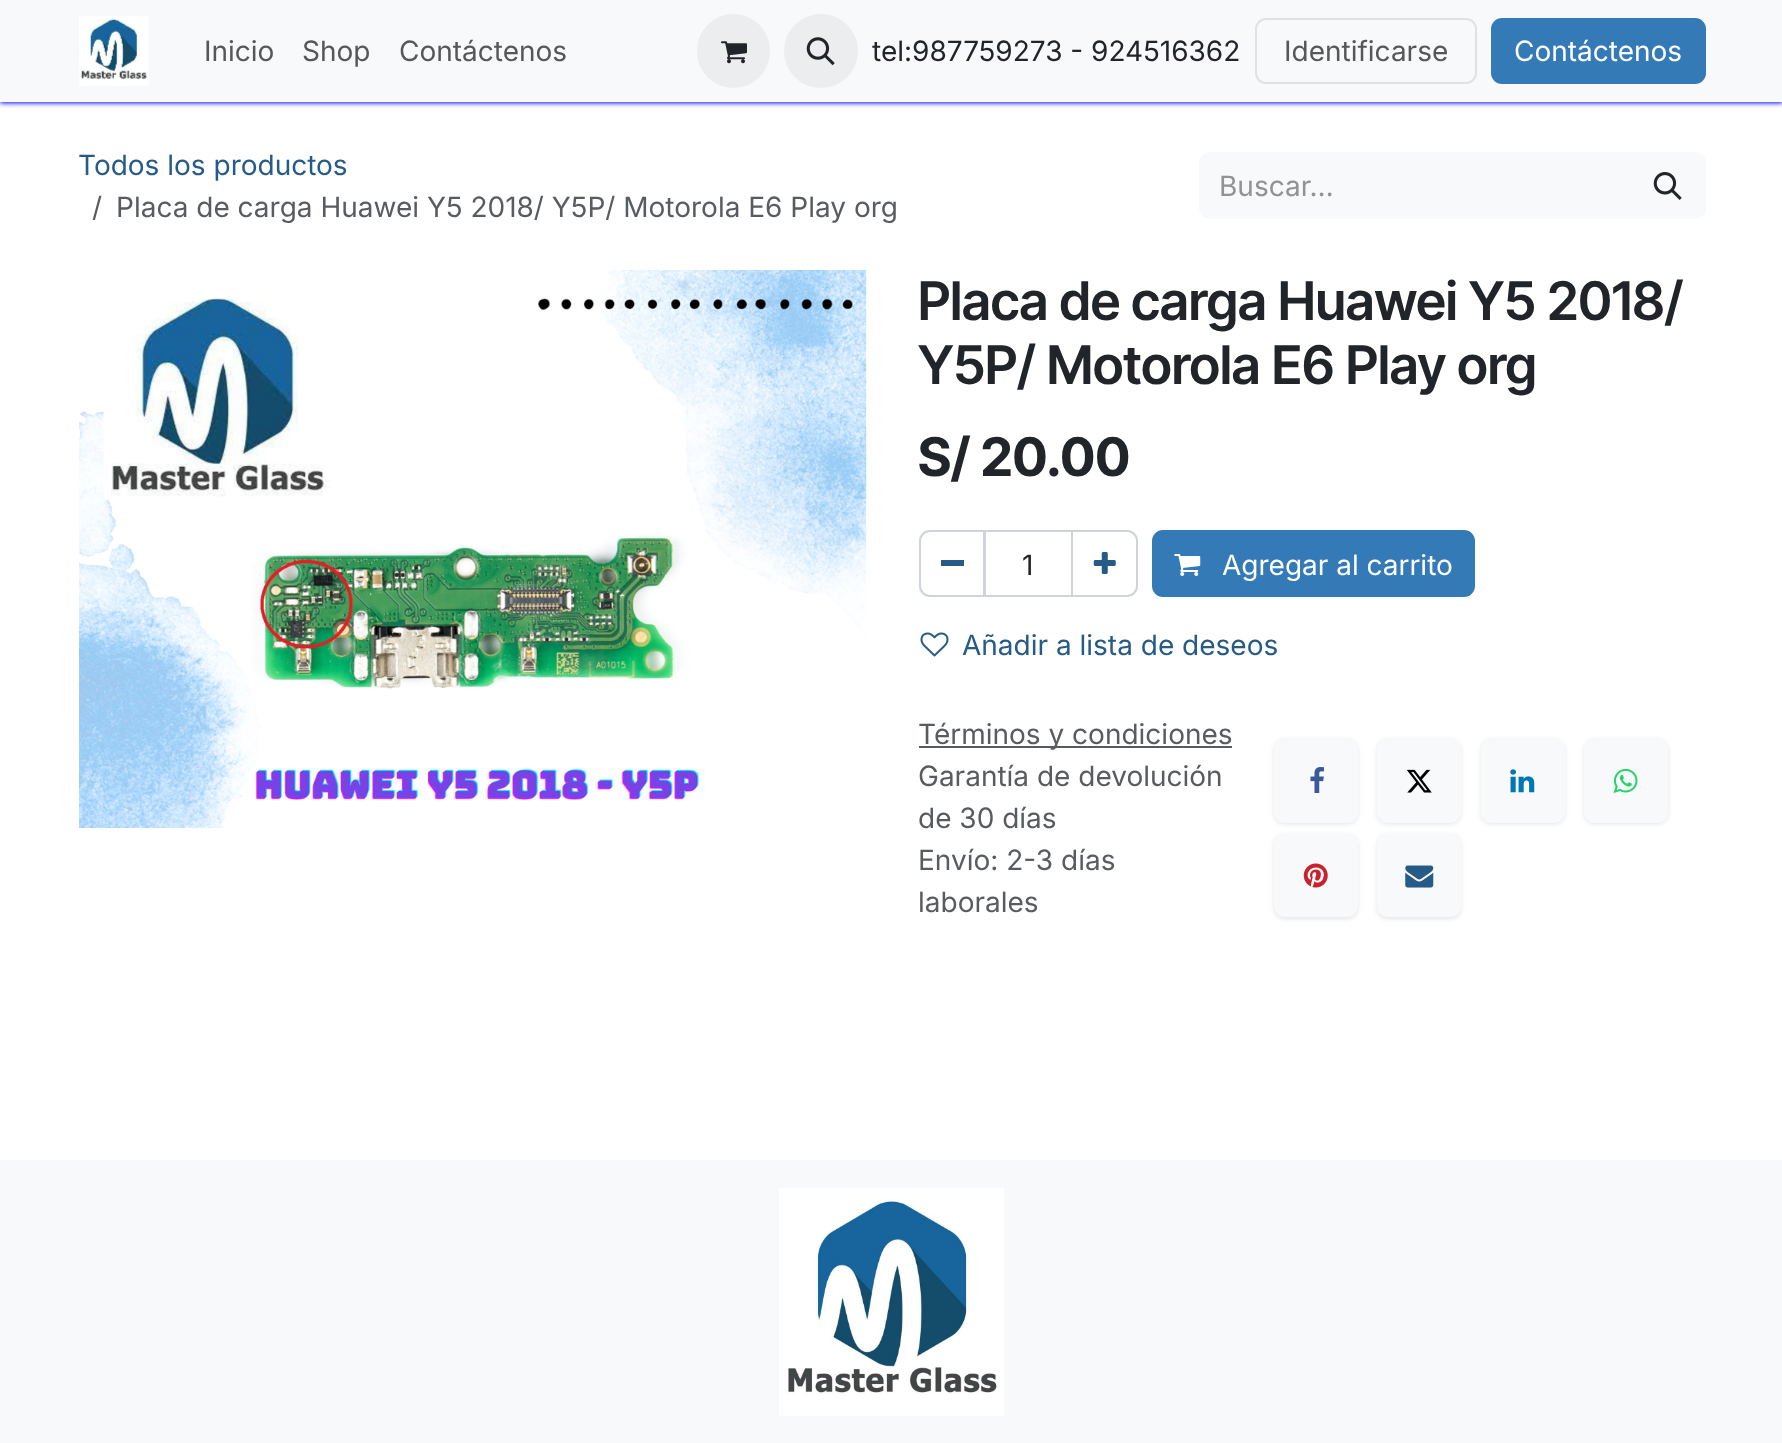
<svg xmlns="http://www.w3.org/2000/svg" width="1782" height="1443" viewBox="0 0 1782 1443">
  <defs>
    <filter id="blur1" x="-50%" y="-200%" width="200%" height="500%"><feGaussianBlur stdDeviation="2.5"/></filter>
  </defs>
  <rect width="100%" height="100%" fill="#ffffff"/>
  <rect x="0" y="2" width="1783" height="101" fill="#0000ff" filter="url(#blur1)"/>
  <rect x="0" y="0" width="1782" height="102" fill="#f8f9fa"/>
  <image x="79" y="16" width="70" height="70" href="img1.png"/>
  <text x="204" y="61" font-family="Inter" font-size="28" fill="#575758">Inicio</text>
  <text x="302" y="61" font-family="Inter" font-size="28" fill="#575758">Shop</text>
  <text x="399" y="61" font-family="Inter" font-size="28" fill="#575758">Contáctenos</text>
  <rect x="697" y="14" width="73" height="74" rx="36.5" fill="#ecedee"/>
  <image x="721" y="41" width="26" height="23" href="img2.png"/>
  <circle cx="821" cy="51" r="37" fill="#ecedee"/>
  <image x="806" y="37" width="29" height="29" href="img3.png"/>
  <text x="872" y="61" font-family="Inter" font-size="28" fill="#212529">tel:987759273 - 924516362</text>
  <rect x="1256" y="19" width="220" height="64" rx="10" fill="none" stroke="#e0e1e2" stroke-width="2"/>
  <text x="1284" y="61" font-family="Inter" font-size="28" fill="#575758">Identificarse</text>
  <rect x="1492" y="19" width="213" height="64" rx="10" fill="#337ab7" stroke="#337ab7" stroke-width="2"/>
  <text x="1514" y="61" font-family="Inter" font-size="28" fill="#ffffff">Contáctenos</text>
  <text x="78" y="175" font-family="Inter" font-size="28" fill="#265a87">Todos los productos</text>
  <text x="92" y="217" font-family="Inter" font-size="28" fill="#595c5f">/</text>
  <text x="116" y="217" font-family="Inter" font-size="28" fill="#595c5f">Placa de carga Huawei Y5 2018/ Y5P/ Motorola E6 Play org</text>
  <path d="M1210 152H1633V219H1210C1204 219 1199 214 1199 208V163C1199 157 1204 152 1210 152Z" fill="#f8f9fa"/>
  <text x="1219" y="196" font-family="Inter" font-size="28" fill="#909294">Buscar…</text>
  <path d="M1631 152H1695C1701 152 1706 157 1706 163V208C1706 214 1701 219 1695 219H1631Z" fill="#f8f9fa"/>
  <image x="1653" y="172" width="29" height="28" href="img4.png"/>
  <image x="79" y="270" width="788" height="558" href="img5.png"/>
  <text x="918" y="320" font-family="Inter Tight" font-size="53.2" font-weight="600" fill="#212529">Placa de carga Huawei Y5 2018/</text>
  <text x="918" y="384" font-family="Inter Tight" font-size="53.2" font-weight="600" fill="#212529">Y5P/ Motorola E6 Play org</text>
  <text x="918" y="476" font-family="Inter Tight" font-size="53.2" font-weight="bold" fill="#212529">S/ 20.00</text>
  <rect x="985" y="531" width="87" height="65" fill="none" stroke="#ced4da" stroke-width="2"/>
  <path d="M930 531H984V596H930C924.5 596 920 591.5 920 586V541C920 535.5 924.5 531 930 531Z" fill="none" stroke="#ced4da" stroke-width="2"/>
  <rect x="941" y="560" width="23" height="6" fill="#265a87"/>
  <text x="1022" y="575" font-family="Inter" font-size="28" fill="#212529">1</text>
  <path d="M1072 531H1127C1132.5 531 1137 535.5 1137 541V586C1137 591.5 1132.5 596 1127 596H1072Z" fill="none" stroke="#ced4da" stroke-width="2"/>
  <image x="1093" y="552" width="23" height="22" href="img6.png"/>
  <rect x="1153" y="531" width="321" height="65" rx="10" fill="#337ab7" stroke="#337ab7" stroke-width="2"/>
  <image x="1174" y="554" width="27" height="22" href="img7.png"/>
  <text x="1222" y="575" font-family="Inter" font-size="28" fill="#ffffff">Agregar al carrito</text>
  <image x="920" y="632" width="29" height="25" href="img8.png"/>
  <text x="962" y="655" font-family="Inter" font-size="28" fill="#265a87">Añadir a lista de deseos</text>
  <rect x="919" y="746" width="313" height="2" fill="#595c5f"/>
  <text x="918" y="744" font-family="Inter" font-size="28" fill="#595c5f">Términos y condiciones</text>
  <text x="918" y="786" font-family="Inter" font-size="28" fill="#595c5f">Garantía de devolución</text>
  <text x="918" y="828" font-family="Inter" font-size="28" fill="#595c5f">de 30 días</text>
  <text x="918" y="870" font-family="Inter" font-size="28" fill="#595c5f">Envío: 2-3 días</text>
  <text x="918" y="912" font-family="Inter" font-size="28" fill="#595c5f">laborales</text>
  <rect x="1274" y="740" width="84" height="84" rx="11" fill="#000000" fill-opacity="0.1" filter="url(#blur1)"/>
  <rect x="1274" y="739" width="84" height="84" rx="11" fill="#f8f9fa"/>
  <image x="1310" y="767" width="14" height="26" href="img9.png"/>
  <rect x="1377" y="740" width="84" height="84" rx="11" fill="#000000" fill-opacity="0.1" filter="url(#blur1)"/>
  <rect x="1377" y="739" width="84" height="84" rx="11" fill="#f8f9fa"/>
  <image x="1406" y="769" width="26" height="24" href="img10.png"/>
  <rect x="1481" y="740" width="84" height="84" rx="11" fill="#000000" fill-opacity="0.1" filter="url(#blur1)"/>
  <rect x="1481" y="739" width="84" height="84" rx="11" fill="#f8f9fa"/>
  <image x="1510" y="769" width="25" height="24" href="img11.png"/>
  <rect x="1584" y="740" width="84" height="84" rx="11" fill="#000000" fill-opacity="0.1" filter="url(#blur1)"/>
  <rect x="1584" y="739" width="84" height="84" rx="11" fill="#f8f9fa"/>
  <image x="1613" y="768" width="25" height="25" href="img12.png"/>
  <rect x="1274" y="835" width="84" height="84" rx="11" fill="#000000" fill-opacity="0.1" filter="url(#blur1)"/>
  <rect x="1274" y="833" width="84" height="84" rx="11" fill="#f8f9fa"/>
  <image x="1303" y="863" width="25" height="25" href="img13.png"/>
  <rect x="1377" y="835" width="84" height="84" rx="11" fill="#000000" fill-opacity="0.1" filter="url(#blur1)"/>
  <rect x="1377" y="833" width="84" height="84" rx="11" fill="#f8f9fa"/>
  <image x="1405" y="865" width="29" height="23" href="img14.png"/>
  <rect x="0" y="1160" width="1782" height="283" fill="#f8f9fa"/>
  <image x="779" y="1188" width="225" height="228" href="img15.png"/>
</svg>
